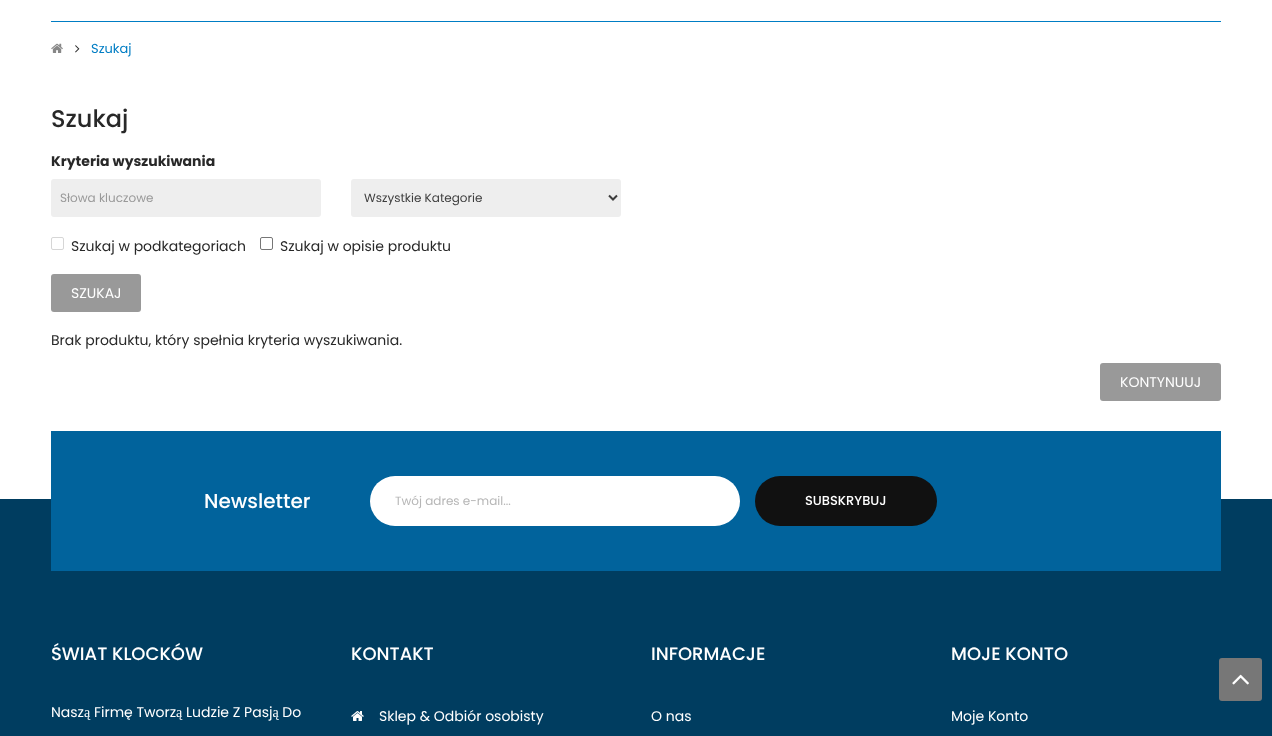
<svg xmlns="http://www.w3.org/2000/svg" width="1272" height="736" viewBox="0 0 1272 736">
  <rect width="100%" height="100%" fill="#ffffff"/>
  <rect x="51" y="21" width="1170" height="1" fill="#007dc4"/>
  <image x="51" y="43" width="12" height="10" href="img1.png"/>
  <image x="75" y="45" width="5" height="8" href="img2.png"/>
  <text x="91" y="53" font-family="Poppins" font-size="13" fill="#007dc4">Szukaj</text>
  <text x="51" y="127" font-family="Poppins" font-size="24" font-weight="500" fill="#282828">Szukaj</text>
  <text x="51" y="166" font-family="Poppins" font-size="14" font-weight="bold" fill="#282828">Kryteria wyszukiwania</text>
  <rect x="51" y="179" width="270" height="38" rx="3" fill="#eeeeee"/>
  <text x="60" y="202" font-family="Poppins" font-size="12" fill="#999999">Słowa kluczowe</text>
  <rect x="351" y="179" width="270" height="38" rx="3" fill="#eeeeee"/>
  <path d="M609 195.5L613 199.5L617 195.5" fill="none" stroke="#3d3d3d" stroke-width="2"/>
  <text x="364" y="202" font-family="Poppins" font-size="12" fill="#3d3d3d">Wszystkie Kategorie</text>
  <rect x="51.5" y="237.5" width="12" height="12" rx="1.5" fill="none" stroke="#d6d6d6"/>
  <text x="71" y="251" font-family="Poppins" font-size="14" fill="#282828">Szukaj w podkategoriach</text>
  <rect x="260.5" y="237.5" width="12" height="12" rx="1.5" fill="none" stroke="#767676"/>
  <text x="280" y="251" font-family="Poppins" font-size="14" fill="#282828">Szukaj w opisie produktu</text>
  <rect x="51" y="274" width="90" height="38" rx="3" fill="#999999"/>
  <text x="71" y="298" font-family="Poppins" font-size="14" fill="#ffffff">SZUKAJ</text>
  <text x="51" y="345" font-family="Poppins" font-size="14" fill="#282828">Brak produktu, który spełnia kryteria wyszukiwania.</text>
  <rect x="1100" y="363" width="121" height="38" rx="3" fill="#999999"/>
  <text x="1120" y="387" font-family="Poppins" font-size="14" fill="#ffffff">KONTYNUUJ</text>
  <rect x="0" y="499" width="1272" height="237" fill="#003d60"/>
  <rect x="51" y="431" width="1170" height="140" fill="#01639c"/>
  <text x="204" y="508" font-family="Poppins" font-size="20" font-weight="500" fill="#ffffff">Newsletter</text>
  <rect x="370" y="476" width="370" height="50" rx="25" fill="#ffffff"/>
  <text x="395" y="505" font-family="Poppins" font-size="12" fill="#b6b6b6">Twój adres e-mail...</text>
  <rect x="755" y="476" width="182" height="50" rx="25" fill="#111111"/>
  <text x="805" y="505" font-family="Poppins" font-size="13" font-weight="500" fill="#ffffff">SUBSKRYBUJ</text>
  <text x="51" y="660" font-family="Poppins" font-size="18" font-weight="500" fill="#ffffff">ŚWIAT KLOCKÓW</text>
  <text x="51" y="717" font-family="Poppins" font-size="14" fill="#ffffff">Naszą Firmę Tworzą Ludzie Z Pasją Do</text>
  <text x="351" y="660" font-family="Poppins" font-size="18" font-weight="500" fill="#ffffff">KONTAKT</text>
  <image x="351" y="711" width="13" height="10" href="img3.png"/>
  <text x="379" y="721" font-family="Poppins" font-size="14" fill="#ffffff">Sklep &amp; Odbiór osobisty</text>
  <text x="651" y="660" font-family="Poppins" font-size="18" font-weight="500" fill="#ffffff">INFORMACJE</text>
  <text x="651" y="721" font-family="Poppins" font-size="14" fill="#ffffff">O nas</text>
  <text x="951" y="660" font-family="Poppins" font-size="18" font-weight="500" fill="#ffffff">MOJE KONTO</text>
  <text x="951" y="721" font-family="Poppins" font-size="14" fill="#ffffff">Moje Konto</text>
  <rect x="1219" y="658" width="43" height="43" rx="3" fill="#777777"/>
  <image x="1232" y="674" width="17" height="11" href="img4.png"/>
</svg>
